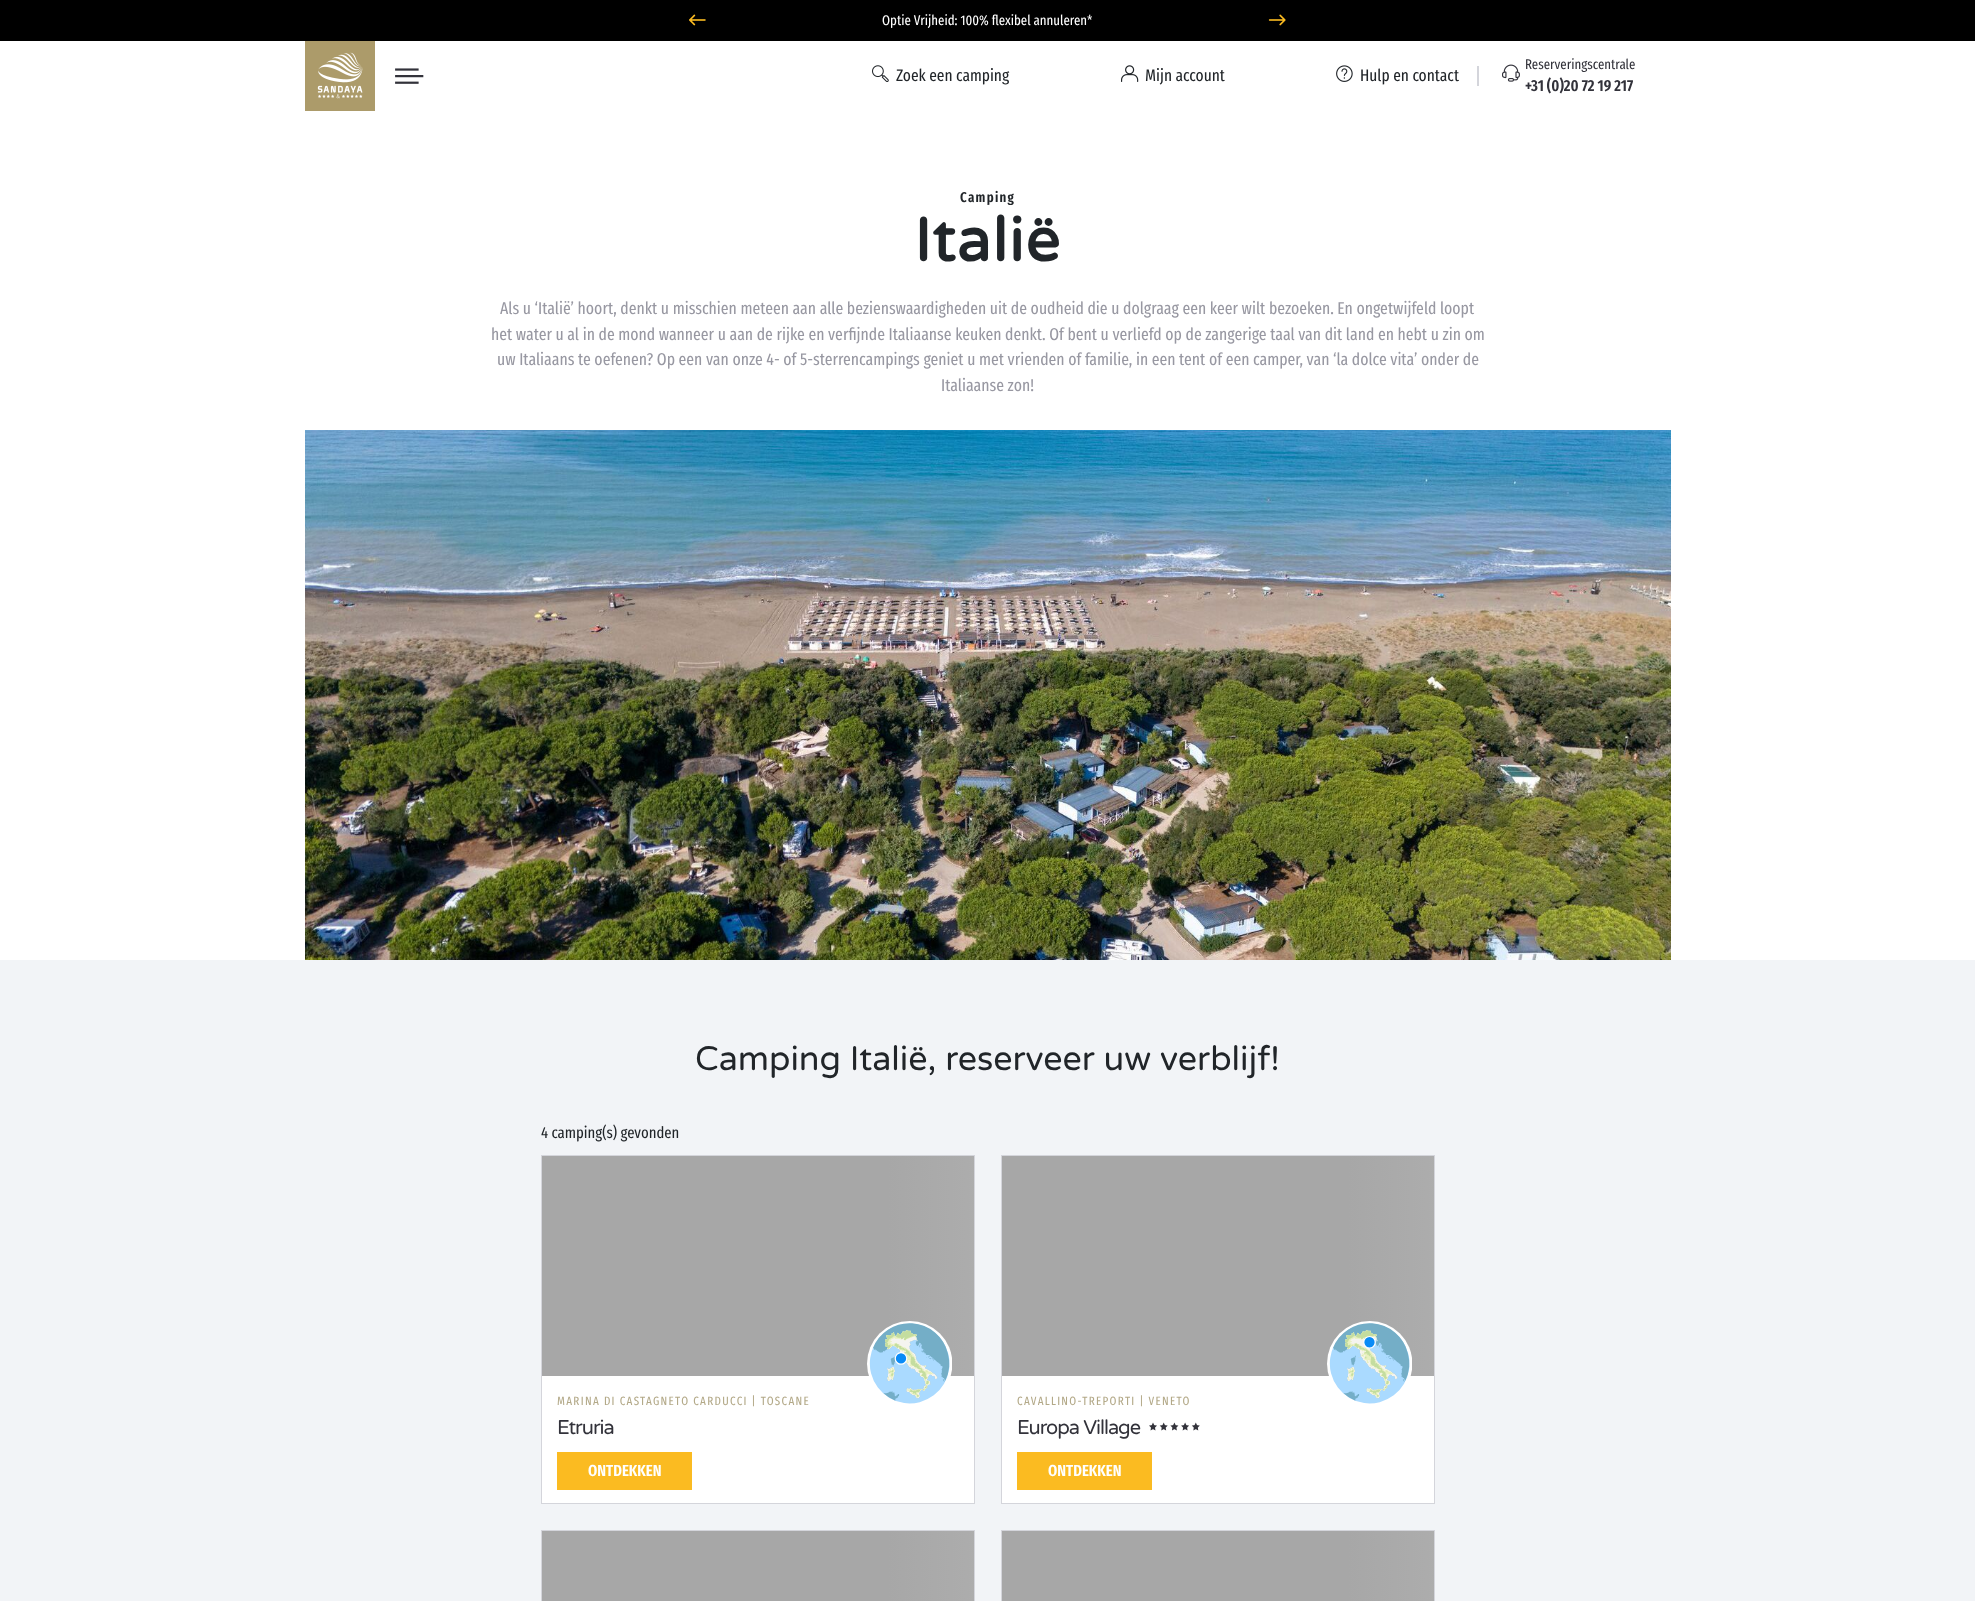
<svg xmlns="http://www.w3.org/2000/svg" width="1975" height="1601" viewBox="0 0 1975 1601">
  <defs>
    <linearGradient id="g1" gradientUnits="userSpaceOnUse" x1="542" y1="1266" x2="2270" y2="1266"><stop offset="0.2" stop-color="#a7a7a7"/><stop offset="0.5" stop-color="#c8c8c8"/><stop offset="0.8" stop-color="#a7a7a7"/></linearGradient>
    <linearGradient id="g2" gradientUnits="userSpaceOnUse" x1="1002" y1="1266" x2="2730" y2="1266"><stop offset="0.2" stop-color="#a7a7a7"/><stop offset="0.5" stop-color="#c8c8c8"/><stop offset="0.8" stop-color="#a7a7a7"/></linearGradient>
    <linearGradient id="g3" gradientUnits="userSpaceOnUse" x1="542" y1="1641" x2="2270" y2="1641"><stop offset="0.2" stop-color="#a7a7a7"/><stop offset="0.5" stop-color="#c8c8c8"/><stop offset="0.8" stop-color="#a7a7a7"/></linearGradient>
    <linearGradient id="g4" gradientUnits="userSpaceOnUse" x1="1002" y1="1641" x2="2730" y2="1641"><stop offset="0.2" stop-color="#a7a7a7"/><stop offset="0.5" stop-color="#c8c8c8"/><stop offset="0.8" stop-color="#a7a7a7"/></linearGradient>
  </defs>
  <rect width="100%" height="100%" fill="#ffffff"/>
  <rect x="0" y="0" width="1975" height="41" fill="#000000"/>
  <image x="689" y="14" width="17" height="12" href="img1.png"/>
  <text x="882" y="25" font-family="Fira Sans Extra Condensed" font-size="14" fill="#ffffff">Optie Vrijheid: 100% flexibel annuleren*</text>
  <image x="1268" y="14" width="18" height="12" href="img2.png"/>
  <image x="305" y="41" width="70" height="70" href="img3.png"/>
  <image x="395" y="68" width="29" height="16" href="img4.png"/>
  <image x="872" y="65" width="17" height="17" href="img5.png"/>
  <text x="896" y="81" font-family="Fira Sans Extra Condensed" font-size="16.75" fill="#212529">Zoek een camping</text>
  <image x="1121" y="65" width="18" height="17" href="img6.png"/>
  <text x="1145" y="81" font-family="Fira Sans Extra Condensed" font-size="16.75" fill="#212529">Mijn account</text>
  <image x="1336" y="65" width="17" height="17" href="img7.png"/>
  <text x="1360" y="81" font-family="Fira Sans Extra Condensed" font-size="16.75" fill="#212529">Hulp en contact</text>
  <rect x="1477" y="66" width="2" height="20" fill="#d4d5db"/>
  <image x="1502" y="64" width="18" height="18" href="img8.png"/>
  <text x="1525" y="69" font-family="Fira Sans Extra Condensed" font-size="14" fill="#32323a">Reserveringscentrale</text>
  <text x="1525" y="91" font-family="Fira Sans Extra Condensed" font-size="16" font-weight="600" fill="#32323a">+31 (0)20 72 19 217</text>
  <text x="960" y="202" font-family="Fira Sans Extra Condensed" font-size="14" font-weight="600" letter-spacing="1.3" fill="#212529">Camping</text>
  <text x="914" y="261" font-family="Varela Round" font-size="61" font-weight="bold" letter-spacing="1.3" fill="#212529">Italië</text>
  <text x="500" y="314" font-family="Fira Sans Extra Condensed" font-size="17.08" fill="#9898a2">Als u ‘Italië’ hoort, denkt u misschien meteen aan alle bezienswaardigheden uit de oudheid die u dolgraag een keer wilt bezoeken. En ongetwijfeld loopt</text>
  <text x="491" y="340" font-family="Fira Sans Extra Condensed" font-size="17.08" fill="#9898a2">het water u al in de mond wanneer u aan de rijke en verfijnde Italiaanse keuken denkt. Of bent u verliefd op de zangerige taal van dit land en hebt u zin om</text>
  <text x="497" y="365" font-family="Fira Sans Extra Condensed" font-size="17.08" fill="#9898a2">uw Italiaans te oefenen? Op een van onze 4- of 5-sterrencampings geniet u met vrienden of familie, in een tent of een camper, van ‘la dolce vita’ onder de</text>
  <text x="941" y="391" font-family="Fira Sans Extra Condensed" font-size="17.08" fill="#9898a2">Italiaanse zon!</text>
  <image x="305" y="430" width="1366" height="530" href="img9.png"/>
  <rect x="0" y="960" width="1975" height="641" fill="#f2f4f7"/>
  <text x="695" y="1070" font-family="Varela Round" font-size="34" fill="#212529">Camping Italië, reserveer uw verblijf!</text>
  <text x="541" y="1138" font-family="Fira Sans Extra Condensed" font-size="16" fill="#212529">4 camping(s) gevonden</text>
  <rect x="542" y="1376" width="432" height="127" fill="#ffffff"/>
  <rect x="541.5" y="1155.5" width="433" height="348" fill="none" stroke="#d4d5db"/>
  <rect x="542" y="1156" width="432" height="220" fill="url(#g1)"/>
  <image x="867" y="1321" width="85" height="83" href="img10.png"/>
  <text x="557" y="1405" font-family="Fira Sans Extra Condensed" font-size="12" letter-spacing="1.3" fill="#b3a988">MARINA DI CASTAGNETO CARDUCCI | TOSCANE</text>
  <text x="557" y="1434" font-family="Varela Round" font-size="20" letter-spacing="-1" fill="#32323a">Etruria</text>
  <rect x="557" y="1452" width="135" height="38" fill="#fbbb21"/>
  <text x="588" y="1476" font-family="Fira Sans Extra Condensed" font-size="16" font-weight="600" fill="#ffffff">ONTDEKKEN</text>
  <rect x="1002" y="1376" width="432" height="127" fill="#ffffff"/>
  <rect x="1001.5" y="1155.5" width="433" height="348" fill="none" stroke="#d4d5db"/>
  <rect x="1002" y="1156" width="432" height="220" fill="url(#g2)"/>
  <image x="1327" y="1321" width="85" height="83" href="img11.png"/>
  <text x="1017" y="1405" font-family="Fira Sans Extra Condensed" font-size="12" letter-spacing="1.3" fill="#b3a988">CAVALLINO-TREPORTI | VENETO</text>
  <text x="1017" y="1434" font-family="Varela Round" font-size="20" letter-spacing="-1" fill="#32323a">Europa Village</text>
  <image x="1149" y="1422" width="51" height="9" href="img12.png"/>
  <rect x="1017" y="1452" width="135" height="38" fill="#fbbb21"/>
  <text x="1048" y="1476" font-family="Fira Sans Extra Condensed" font-size="16" font-weight="600" fill="#ffffff">ONTDEKKEN</text>
  <rect x="541.5" y="1530.5" width="433" height="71" fill="none" stroke="#d4d5db"/>
  <rect x="542" y="1531" width="432" height="70" fill="url(#g3)"/>
  <rect x="1001.5" y="1530.5" width="433" height="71" fill="none" stroke="#d4d5db"/>
  <rect x="1002" y="1531" width="432" height="70" fill="url(#g4)"/>
</svg>
